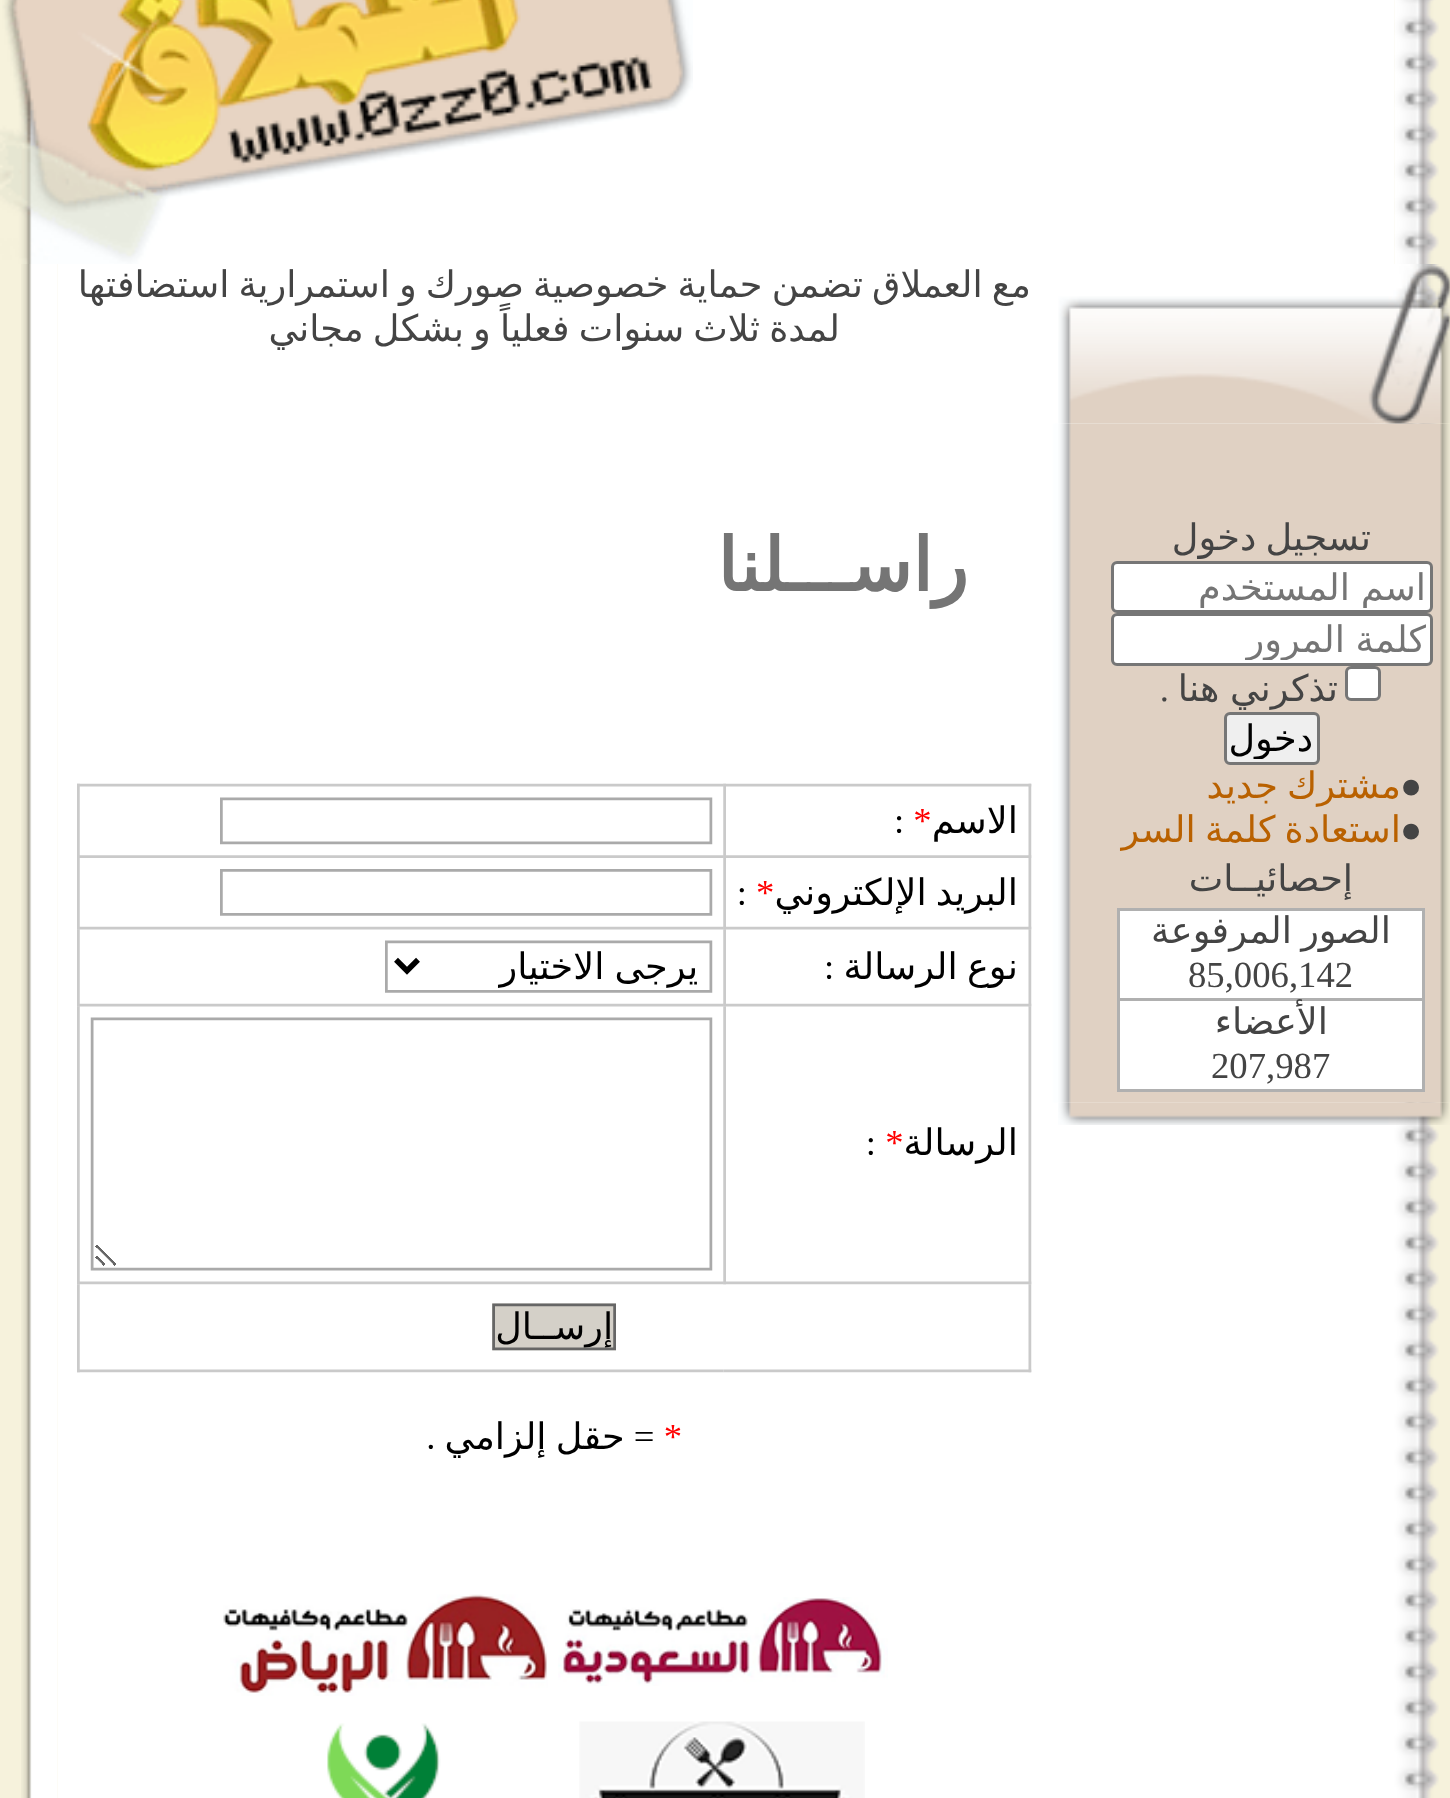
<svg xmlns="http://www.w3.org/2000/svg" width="1450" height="1798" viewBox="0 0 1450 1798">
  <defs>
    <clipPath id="clip1"><rect x="1117" y="567" width="310" height="41"/></clipPath>
    <clipPath id="clip2"><rect x="1117" y="619" width="310" height="41"/></clipPath>
    <clipPath id="clip3"><rect x="1229" y="718" width="86" height="41"/></clipPath>
  </defs>
  <rect width="100%" height="100%" fill="#f6f2dc"/>
  <image x="1394" y="0" width="45" height="264" href="img1.png"/>
  <rect x="693" y="0" width="701" height="264" fill="#ffffff"/>
  <rect x="139" y="90" width="554" height="174" fill="#ffffff"/>
  <image x="0" y="0" width="693" height="264" href="img2.png"/>
  <rect x="58" y="264" width="993" height="1534" fill="#ffffff"/>
  <text x="1031" y="297" word-spacing="-2.5" font-family="DejaVu Sans" font-size="36.7" direction="rtl" fill="#444444">مع العملاق تضمن حماية خصوصية صورك و استمرارية استضافتها</text>
  <text x="840" y="341" word-spacing="-2.5" font-family="DejaVu Sans" font-size="36.7" direction="rtl" fill="#444444">لمدة ثلاث سنوات فعلياً و بشكل مجاني</text>
  <text x="968" y="591" font-family="DejaVu Sans" font-size="73.5" font-weight="bold" direction="rtl" fill="#757575">راســـلنا</text>
  <image x="77" y="783" width="955" height="675" href="img3.png"/>
  <image x="558" y="1597" width="330" height="89" href="img4.png"/>
  <image x="223" y="1594" width="325" height="102" href="img5.png"/>
  <image x="579" y="1721" width="286" height="77" href="img6.png"/>
  <image x="327" y="1723" width="114" height="75" href="img7.png"/>
  <image x="21" y="264" width="37" height="1534" href="img8.png"/>
  <image x="1051" y="264" width="388" height="1534" href="img9.png"/>
  <image x="1051" y="423" width="399" height="680" href="img11.png"/>
  <image x="1058" y="264" width="392" height="160" href="img10.png"/>
  <text x="1371" y="550" word-spacing="-2.5" font-family="DejaVu Sans" font-size="36.7" direction="rtl" fill="#444444">تسجيل دخول</text>
  <rect x="1112.5" y="562.5" width="319" height="49" rx="4.5" fill="#ffffff" stroke="#767676" stroke-width="3"/>
  <g clip-path="url(#clip1)">
    <text x="1426" y="600" word-spacing="-1" font-family="DejaVu Sans" font-size="36.7" direction="rtl" fill="#757575">اسم المستخدم</text>
  </g>
  <rect x="1112.5" y="614.5" width="319" height="50" rx="4.5" fill="#ffffff" stroke="#767676" stroke-width="3"/>
  <g clip-path="url(#clip2)">
    <text x="1426" y="652" word-spacing="-1" font-family="DejaVu Sans" font-size="36.7" direction="rtl" fill="#757575">كلمة المرور</text>
  </g>
  <rect x="1346.5" y="667.5" width="33" height="32" rx="4.5" fill="#ffffff" stroke="#767676" stroke-width="3"/>
  <text x="1338" y="701" word-spacing="-1" font-family="DejaVu Sans" font-size="36.7" direction="rtl" fill="#444444">تذكرني هنا</text>
  <text x="1169" y="701" font-family="Liberation Serif" font-size="36.7" direction="rtl" fill="#444444">.</text>
  <rect x="1225.5" y="713.5" width="93" height="50" rx="4.5" fill="#efefef" stroke="#767676" stroke-width="3"/>
  <g clip-path="url(#clip3)">
    <text x="1313" y="751" font-family="DejaVu Sans" font-size="36.7" direction="rtl" fill="#000000">دخول</text>
  </g>
  <text x="1400" y="798" font-family="Liberation Serif" font-size="36.7" fill="#444444">●</text>
  <text x="1401" y="798" word-spacing="-2.5" font-family="DejaVu Sans" font-size="36.7" direction="rtl" fill="#b96100">مشترك جديد</text>
  <text x="1400" y="842" font-family="Liberation Serif" font-size="36.7" fill="#444444">●</text>
  <text x="1401" y="842" word-spacing="-2.5" font-family="DejaVu Sans" font-size="36.7" direction="rtl" fill="#b96100">استعادة كلمة السر</text>
  <text x="1353" y="891" font-family="DejaVu Sans" font-size="36.7" direction="rtl" fill="#444444">إحصائيــات</text>
  <rect x="1120" y="911" width="302" height="178" fill="#ffffff"/>
  <rect x="1117" y="908" width="308" height="3" fill="#b0b0b0"/>
  <rect x="1422" y="908" width="3" height="184" fill="#b0b0b0"/>
  <rect x="1117" y="1089" width="308" height="3" fill="#b0b0b0"/>
  <rect x="1117" y="908" width="3" height="184" fill="#b0b0b0"/>
  <text x="1391" y="943" word-spacing="-2.5" font-family="DejaVu Sans" font-size="36.7" direction="rtl" fill="#444444">الصور المرفوعة</text>
  <text x="1188" y="987" font-family="Liberation Serif" font-size="36.7" fill="#444444">85,006,142</text>
  <rect x="1117" y="998" width="308" height="3" fill="#b0b0b0"/>
  <text x="1328" y="1034" font-family="DejaVu Sans" font-size="36.7" direction="rtl" fill="#444444">الأعضاء</text>
  <text x="1211" y="1078" font-family="Liberation Serif" font-size="36.7" fill="#444444">207,987</text>
  <image x="1058" y="1102" width="392" height="23" href="img12.png"/>
</svg>
